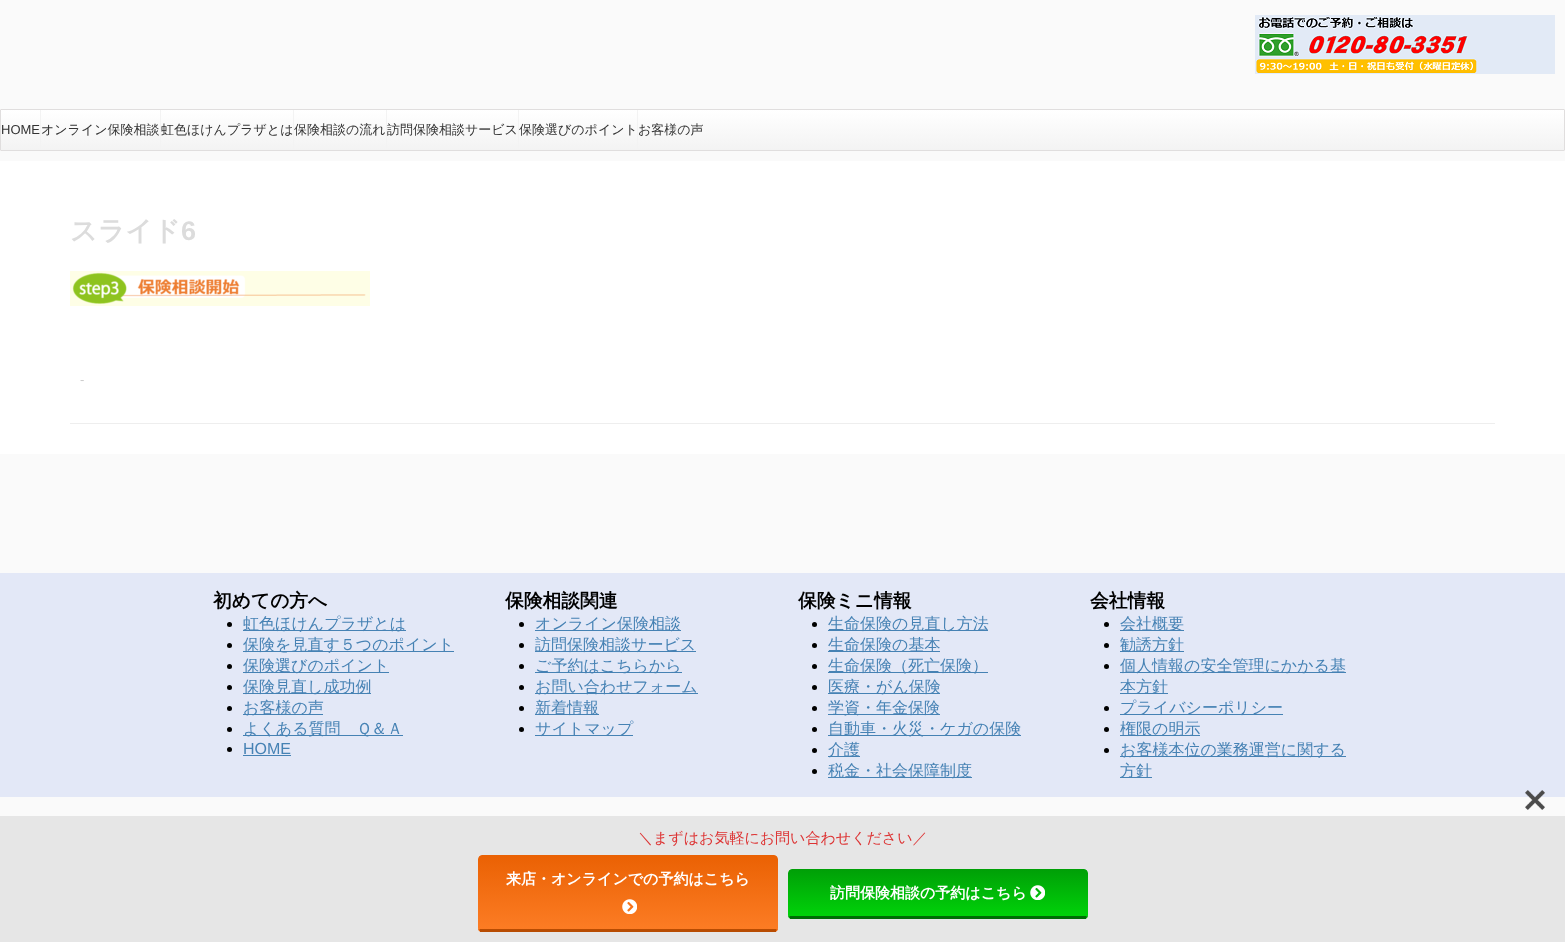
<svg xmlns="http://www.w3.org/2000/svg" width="1565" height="942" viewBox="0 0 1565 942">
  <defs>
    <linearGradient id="g1" gradientUnits="userSpaceOnUse" x1="783" y1="110" x2="783" y2="150"><stop offset="0" stop-color="#ffffff"/><stop offset="1" stop-color="#f3f3f3"/></linearGradient>
    <clipPath id="clip1"><rect x="387" y="110" width="131" height="40"/></clipPath>
    <clipPath id="clip2"><rect x="478" y="855" width="300" height="77" rx="4"/></clipPath>
    <linearGradient id="g2" gradientUnits="userSpaceOnUse" x1="628" y1="855" x2="628" y2="929"><stop offset="0" stop-color="#ea6103"/><stop offset="1" stop-color="#fc7c24"/></linearGradient>
    <linearGradient id="g3" gradientUnits="userSpaceOnUse" x1="628" y1="929" x2="628" y2="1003"><stop offset="0" stop-color="#ea6103"/><stop offset="1" stop-color="#fc7c24"/></linearGradient>
    <clipPath id="clip3"><rect x="788" y="869" width="300" height="50" rx="4"/></clipPath>
    <linearGradient id="g4" gradientUnits="userSpaceOnUse" x1="938" y1="869" x2="938" y2="916"><stop offset="0" stop-color="#009f07"/><stop offset="1" stop-color="#00d209"/></linearGradient>
    <linearGradient id="g5" gradientUnits="userSpaceOnUse" x1="938" y1="916" x2="938" y2="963"><stop offset="0" stop-color="#009f07"/><stop offset="1" stop-color="#00d209"/></linearGradient>
  </defs>
  <rect width="100%" height="100%" fill="#fafafa"/>
  <image x="1255" y="15" width="300" height="59" href="img1.png"/>
  <rect x="1" y="110" width="1563" height="40" fill="url(#g1)"/>
  <rect x="0.5" y="109.5" width="1564" height="41" rx="0.5" fill="none" stroke="#e0dede"/>
  <rect x="40" y="110" width="1" height="40" fill="#f3f3f3"/>
  <text x="1" y="134" font-family="Liberation Sans" font-size="13" fill="#333333">HOME</text>
  <rect x="160" y="110" width="1" height="40" fill="#f3f3f3"/>
  <text x="41" y="134" font-family="WenQuanYi Zen Hei" font-size="13" font-weight="500" fill="#333333">オンライン保険相談</text>
  <rect x="293" y="110" width="1" height="40" fill="#f3f3f3"/>
  <text x="161" y="134" font-family="WenQuanYi Zen Hei" font-size="13" font-weight="500" fill="#333333">虹色ほけんプラザとは</text>
  <rect x="386" y="110" width="1" height="40" fill="#f3f3f3"/>
  <text x="294" y="134" font-family="WenQuanYi Zen Hei" font-size="13" font-weight="500" fill="#333333">保険相談の流れ</text>
  <rect x="518" y="110" width="1" height="40" fill="#f3f3f3"/>
  <g clip-path="url(#clip1)">
    <text x="387" y="134" font-family="WenQuanYi Zen Hei" font-size="13" font-weight="500" fill="#333333">訪問保険相談サービス</text>
  </g>
  <rect x="637" y="110" width="1" height="40" fill="#f3f3f3"/>
  <text x="519" y="134" font-family="WenQuanYi Zen Hei" font-size="13" font-weight="500" fill="#333333">保険選びのポイント</text>
  <text x="638" y="134" font-family="WenQuanYi Zen Hei" font-size="13" font-weight="500" fill="#333333">お客様の声</text>
  <rect x="0" y="161" width="1565" height="293" fill="#ffffff"/>
  <text x="70" y="240" font-family="WenQuanYi Zen Hei" font-size="27" font-weight="bold" fill="#dcdcdc">スライド</text>
  <text x="181" y="240" font-family="Liberation Sans" font-size="27" font-weight="bold" fill="#dcdcdc">6</text>
  <image x="70" y="271" width="300" height="35" href="img2.png"/>
  <text x="80" y="384" font-family="Liberation Sans" font-size="13" fill="#cccccc">-</text>
  <rect x="70" y="423" width="1425" height="1" fill="#eeeeee"/>
  <rect x="0" y="573" width="1565" height="224" fill="#e3e8f7"/>
  <text x="213" y="607" font-family="WenQuanYi Zen Hei" font-size="18.75" font-weight="bold" fill="#000000">初めての方へ</text>
  <circle cx="229.5" cy="624.5" r="2.5" fill="#000000"/>
  <rect x="243" y="630" width="163" height="1" fill="#4682b4"/>
  <text x="243" y="629" font-family="WenQuanYi Zen Hei" font-size="16" font-weight="500" fill="#4682b4">虹色ほけんプラザとは</text>
  <circle cx="229.5" cy="645.5" r="2.5" fill="#000000"/>
  <rect x="243" y="651" width="211" height="1" fill="#4682b4"/>
  <text x="243" y="650" font-family="WenQuanYi Zen Hei" font-size="16" font-weight="500" fill="#4682b4">保険を見直す５つのポイント</text>
  <circle cx="229.5" cy="666.5" r="2.5" fill="#000000"/>
  <rect x="243" y="672" width="146" height="1" fill="#4682b4"/>
  <text x="243" y="671" font-family="WenQuanYi Zen Hei" font-size="16" font-weight="500" fill="#4682b4">保険選びのポイント</text>
  <circle cx="229.5" cy="687.5" r="2.5" fill="#000000"/>
  <rect x="243" y="693" width="128" height="1" fill="#4682b4"/>
  <text x="243" y="692" font-family="WenQuanYi Zen Hei" font-size="16" font-weight="500" fill="#4682b4">保険見直し成功例</text>
  <circle cx="229.5" cy="708.5" r="2.5" fill="#000000"/>
  <rect x="243" y="714" width="80" height="1" fill="#4682b4"/>
  <text x="243" y="713" font-family="WenQuanYi Zen Hei" font-size="16" font-weight="500" fill="#4682b4">お客様の声</text>
  <circle cx="229.5" cy="729.5" r="2.5" fill="#000000"/>
  <rect x="243" y="735" width="160" height="1" fill="#4682b4"/>
  <text x="243" y="734" font-family="WenQuanYi Zen Hei" font-size="16" font-weight="500" fill="#4682b4">よくある質問　Ｑ＆Ａ</text>
  <circle cx="229.5" cy="749.5" r="2.5" fill="#000000"/>
  <text x="243" y="754" font-family="Liberation Sans" font-size="16" fill="#4682b4">HOME</text>
  <rect x="243" y="755" width="48" height="1" fill="#4682b4"/>
  <text x="505" y="607" font-family="WenQuanYi Zen Hei" font-size="18.75" font-weight="bold" fill="#000000">保険相談関連</text>
  <circle cx="521.5" cy="624.5" r="2.5" fill="#000000"/>
  <rect x="535" y="630" width="146" height="1" fill="#4682b4"/>
  <text x="535" y="629" font-family="WenQuanYi Zen Hei" font-size="16" font-weight="500" fill="#4682b4">オンライン保険相談</text>
  <circle cx="521.5" cy="645.5" r="2.5" fill="#000000"/>
  <rect x="535" y="651" width="161" height="1" fill="#4682b4"/>
  <text x="535" y="650" font-family="WenQuanYi Zen Hei" font-size="16" font-weight="500" fill="#4682b4">訪問保険相談サービス</text>
  <circle cx="521.5" cy="666.5" r="2.5" fill="#000000"/>
  <rect x="535" y="672" width="147" height="1" fill="#4682b4"/>
  <text x="535" y="671" font-family="WenQuanYi Zen Hei" font-size="16" font-weight="500" fill="#4682b4">ご予約はこちらから</text>
  <circle cx="521.5" cy="687.5" r="2.5" fill="#000000"/>
  <rect x="535" y="693" width="163" height="1" fill="#4682b4"/>
  <text x="535" y="692" font-family="WenQuanYi Zen Hei" font-size="16" font-weight="500" fill="#4682b4">お問い合わせフォーム</text>
  <circle cx="521.5" cy="708.5" r="2.5" fill="#000000"/>
  <rect x="535" y="714" width="64" height="1" fill="#4682b4"/>
  <text x="535" y="713" font-family="WenQuanYi Zen Hei" font-size="16" font-weight="500" fill="#4682b4">新着情報</text>
  <circle cx="521.5" cy="729.5" r="2.5" fill="#000000"/>
  <rect x="535" y="735" width="98" height="1" fill="#4682b4"/>
  <text x="535" y="734" font-family="WenQuanYi Zen Hei" font-size="16" font-weight="500" fill="#4682b4">サイトマップ</text>
  <text x="798" y="607" font-family="WenQuanYi Zen Hei" font-size="18.75" font-weight="bold" fill="#000000">保険ミニ情報</text>
  <circle cx="814.5" cy="624.5" r="2.5" fill="#000000"/>
  <rect x="828" y="630" width="160" height="1" fill="#4682b4"/>
  <text x="828" y="629" font-family="WenQuanYi Zen Hei" font-size="16" font-weight="500" fill="#4682b4">生命保険の見直し方法</text>
  <circle cx="814.5" cy="645.5" r="2.5" fill="#000000"/>
  <rect x="828" y="651" width="112" height="1" fill="#4682b4"/>
  <text x="828" y="650" font-family="WenQuanYi Zen Hei" font-size="16" font-weight="500" fill="#4682b4">生命保険の基本</text>
  <circle cx="814.5" cy="666.5" r="2.5" fill="#000000"/>
  <rect x="828" y="672" width="160" height="1" fill="#4682b4"/>
  <text x="828" y="671" font-family="WenQuanYi Zen Hei" font-size="16" font-weight="500" fill="#4682b4">生命保険（死亡保険）</text>
  <circle cx="814.5" cy="687.5" r="2.5" fill="#000000"/>
  <rect x="828" y="693" width="112" height="1" fill="#4682b4"/>
  <text x="828" y="692" font-family="WenQuanYi Zen Hei" font-size="16" font-weight="500" fill="#4682b4">医療・がん保険</text>
  <circle cx="814.5" cy="708.5" r="2.5" fill="#000000"/>
  <rect x="828" y="714" width="112" height="1" fill="#4682b4"/>
  <text x="828" y="713" font-family="WenQuanYi Zen Hei" font-size="16" font-weight="500" fill="#4682b4">学資・年金保険</text>
  <circle cx="814.5" cy="729.5" r="2.5" fill="#000000"/>
  <rect x="828" y="735" width="193" height="1" fill="#4682b4"/>
  <text x="828" y="734" font-family="WenQuanYi Zen Hei" font-size="16" font-weight="500" fill="#4682b4">自動車・火災・ケガの保険</text>
  <circle cx="814.5" cy="750.5" r="2.5" fill="#000000"/>
  <rect x="828" y="756" width="32" height="1" fill="#4682b4"/>
  <text x="828" y="755" font-family="WenQuanYi Zen Hei" font-size="16" font-weight="500" fill="#4682b4">介護</text>
  <circle cx="814.5" cy="771.5" r="2.5" fill="#000000"/>
  <rect x="828" y="777" width="144" height="1" fill="#4682b4"/>
  <text x="828" y="776" font-family="WenQuanYi Zen Hei" font-size="16" font-weight="500" fill="#4682b4">税金・社会保障制度</text>
  <text x="1090" y="607" font-family="WenQuanYi Zen Hei" font-size="18.75" font-weight="bold" fill="#000000">会社情報</text>
  <circle cx="1106.5" cy="624.5" r="2.5" fill="#000000"/>
  <rect x="1120" y="630" width="64" height="1" fill="#4682b4"/>
  <text x="1120" y="629" font-family="WenQuanYi Zen Hei" font-size="16" font-weight="500" fill="#4682b4">会社概要</text>
  <circle cx="1106.5" cy="645.5" r="2.5" fill="#000000"/>
  <rect x="1120" y="651" width="64" height="1" fill="#4682b4"/>
  <text x="1120" y="650" font-family="WenQuanYi Zen Hei" font-size="16" font-weight="500" fill="#4682b4">勧誘方針</text>
  <circle cx="1106.5" cy="666.5" r="2.5" fill="#000000"/>
  <rect x="1120" y="672" width="226" height="1" fill="#4682b4"/>
  <text x="1120" y="671" font-family="WenQuanYi Zen Hei" font-size="16" font-weight="500" fill="#4682b4">個人情報の安全管理にかかる基</text>
  <rect x="1120" y="693" width="48" height="1" fill="#4682b4"/>
  <text x="1120" y="692" font-family="WenQuanYi Zen Hei" font-size="16" font-weight="500" fill="#4682b4">本方針</text>
  <circle cx="1106.5" cy="708.5" r="2.5" fill="#000000"/>
  <rect x="1120" y="714" width="163" height="1" fill="#4682b4"/>
  <text x="1120" y="713" font-family="WenQuanYi Zen Hei" font-size="16" font-weight="500" fill="#4682b4">プライバシーポリシー</text>
  <circle cx="1106.5" cy="729.5" r="2.5" fill="#000000"/>
  <rect x="1120" y="735" width="80" height="1" fill="#4682b4"/>
  <text x="1120" y="734" font-family="WenQuanYi Zen Hei" font-size="16" font-weight="500" fill="#4682b4">権限の明示</text>
  <circle cx="1106.5" cy="750.5" r="2.5" fill="#000000"/>
  <rect x="1120" y="756" width="226" height="1" fill="#4682b4"/>
  <text x="1120" y="755" font-family="WenQuanYi Zen Hei" font-size="16" font-weight="500" fill="#4682b4">お客様本位の業務運営に関する</text>
  <rect x="1120" y="777" width="32" height="1" fill="#4682b4"/>
  <text x="1120" y="776" font-family="WenQuanYi Zen Hei" font-size="16" font-weight="500" fill="#4682b4">方針</text>
  <rect x="0" y="816" width="1565" height="126" fill="#e2e2e2" fill-opacity="0.85"/>
  <image x="1525" y="790" width="20" height="20" href="img3.png"/>
  <text x="638" y="843" font-family="WenQuanYi Zen Hei" font-size="15" font-weight="500" fill="#dd3333">＼まずはお気軽にお問い合わせください／</text>
  <g clip-path="url(#clip2)">
    <path d="M482 855H774C776 855 778 857 778 859V929H478V859C478 857 480 855 482 855Z" fill="url(#g2)"/>
    <rect x="478" y="929" width="300" height="3" fill="url(#g3)"/>
  </g>
  <rect x="480" y="929" width="296" height="3" fill="#b84c02"/>
  <text x="506" y="884" font-family="WenQuanYi Zen Hei" font-size="15" font-weight="bold" fill="#ffffff">来店・オンラインでの予約はこちら</text>
  <image x="622" y="899" width="15" height="15" href="img4.png"/>
  <g clip-path="url(#clip3)">
    <path d="M792 869H1084C1086 869 1088 871 1088 873V916H788V873C788 871 790 869 792 869Z" fill="url(#g4)"/>
    <rect x="788" y="916" width="300" height="3" fill="url(#g5)"/>
  </g>
  <rect x="790" y="916" width="296" height="3" fill="#006c05"/>
  <text x="830" y="898" font-family="WenQuanYi Zen Hei" font-size="15" font-weight="bold" fill="#ffffff">訪問保険相談の予約はこちら</text>
  <image x="1030" y="885" width="15" height="15" href="img5.png"/>
</svg>
